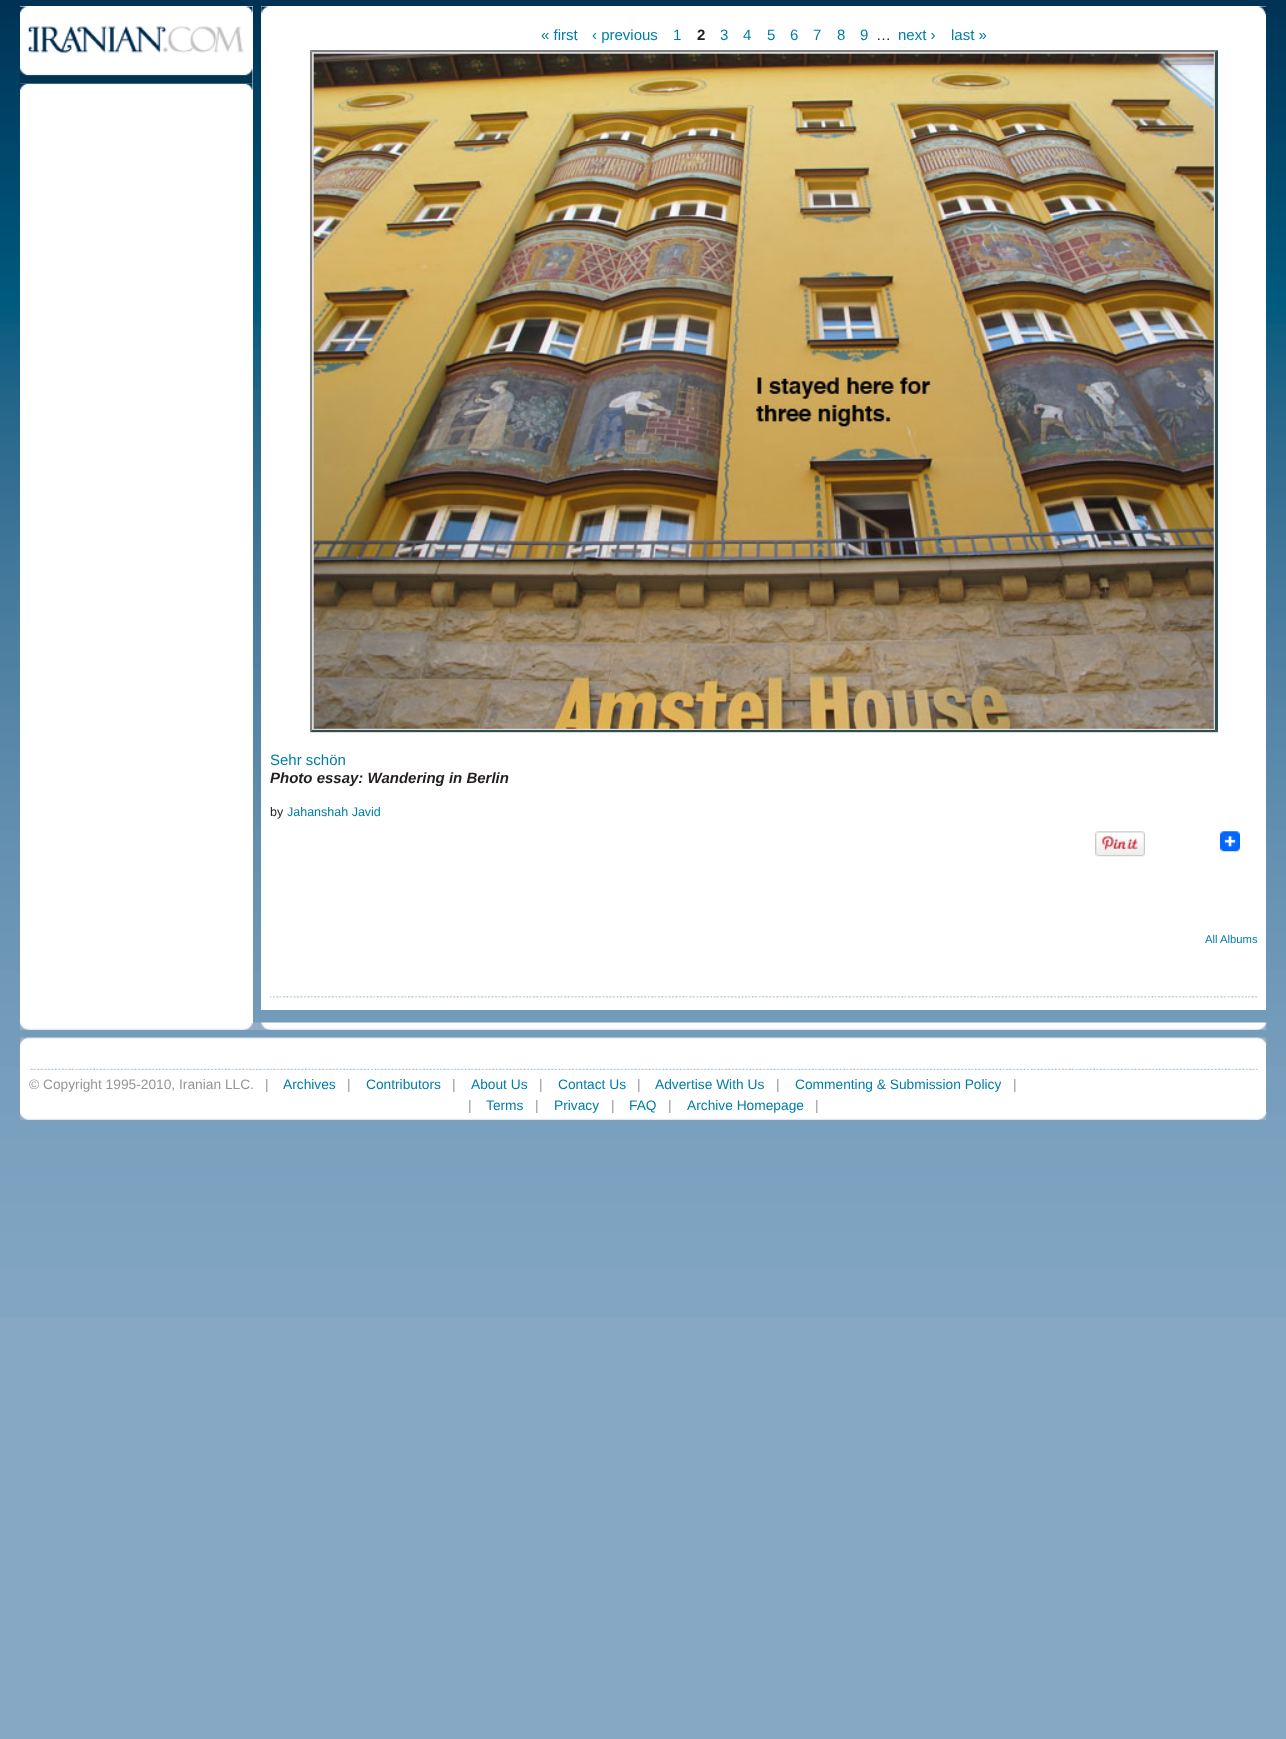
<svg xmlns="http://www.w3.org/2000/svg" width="1286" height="1739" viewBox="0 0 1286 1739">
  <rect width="100%" height="100%" fill="#86a8c5"/>
  <image x="0" y="0" width="1286" height="1317" href="img1.png"/>
  <image x="20" y="1022" width="1247" height="8" href="img9.png"/>
  <rect x="20" y="6" width="233" height="1017" fill="#ffffff"/>
  <image x="20" y="83" width="233" height="7" href="img3.png"/>
  <image x="20" y="6" width="233" height="78" href="img2.png"/>
  <rect x="261" y="6" width="1005" height="1004" fill="#ffffff"/>
  <image x="261" y="6" width="1006" height="8" href="img4.png"/>
  <image x="270" y="996" width="987" height="2" href="img5.png"/>
  <text x="541" y="40" font-family="Liberation Sans" font-size="15" fill="#007da6">« first</text>
  <text x="592" y="40" font-family="Liberation Sans" font-size="15" fill="#007da6">‹ previous</text>
  <text x="673" y="40" font-family="Liberation Sans" font-size="15" fill="#007da6">1</text>
  <text x="697" y="40" font-family="Liberation Sans" font-size="15" font-weight="bold" fill="#221e1f">2</text>
  <text x="720" y="40" font-family="Liberation Sans" font-size="15" fill="#007da6">3</text>
  <text x="743" y="40" font-family="Liberation Sans" font-size="15" fill="#007da6">4</text>
  <text x="767" y="40" font-family="Liberation Sans" font-size="15" fill="#007da6">5</text>
  <text x="790" y="40" font-family="Liberation Sans" font-size="15" fill="#007da6">6</text>
  <text x="813" y="40" font-family="Liberation Sans" font-size="15" fill="#007da6">7</text>
  <text x="837" y="40" font-family="Liberation Sans" font-size="15" fill="#007da6">8</text>
  <text x="860" y="40" font-family="Liberation Sans" font-size="15" fill="#007da6">9</text>
  <text x="876" y="40" font-family="Liberation Sans" font-size="15" fill="#221e1f">…</text>
  <text x="898" y="40" font-family="Liberation Sans" font-size="15" fill="#007da6">next ›</text>
  <text x="951" y="40" font-family="Liberation Sans" font-size="15" fill="#007da6">last »</text>
  <rect x="310" y="50" width="908" height="683" fill="#dcdcdc"/>
  <path d="M310 50H1218L1215 52H312Z" fill="#808080"/>
  <path d="M1218 50V732L1215 730V52Z" fill="#2f4f4f"/>
  <path d="M1218 732H310L312 730H1215Z" fill="#2f4f4f"/>
  <path d="M310 732V50L312 52V730Z" fill="#808080"/>
  <image x="313" y="53" width="901" height="676" href="img6.png"/>
  <text x="270" y="765" font-family="Liberation Sans" font-size="15" fill="#007da6">Sehr schön</text>
  <text x="270" y="783" font-family="Liberation Sans" font-size="15" font-weight="bold" font-style="italic" fill="#221e1f">Photo essay: Wandering in Berlin</text>
  <text x="270" y="816" font-family="Liberation Sans" font-size="12.5" fill="#221e1f">by</text>
  <text x="287" y="816" font-family="Liberation Sans" font-size="12.5" fill="#007da6">Jahanshah Javid</text>
  <image x="1095" y="831" width="50" height="26" href="img7.png"/>
  <image x="1220" y="831" width="20" height="21" href="img8.png"/>
  <text x="1205" y="943" font-family="Liberation Sans" font-size="11.25" fill="#007da6">All Albums</text>
  <image x="20" y="1112" width="1247" height="8" href="img12.png"/>
  <rect x="20" y="1045" width="1246" height="68" fill="#ffffff"/>
  <image x="20" y="1037" width="1247" height="8" href="img10.png"/>
  <image x="28" y="1068" width="1230" height="2" href="img11.png"/>
  <text x="29" y="1089" font-family="Liberation Sans" font-size="13.75" fill="#939698">© Copyright 1995-2010, Iranian LLC.</text>
  <text x="265" y="1089" font-family="Liberation Sans" font-size="13.75" fill="#939698">|</text>
  <text x="283" y="1089" font-family="Liberation Sans" font-size="13.75" fill="#007da6">Archives</text>
  <text x="347" y="1089" font-family="Liberation Sans" font-size="13.75" fill="#939698">|</text>
  <text x="366" y="1089" font-family="Liberation Sans" font-size="13.75" fill="#007da6">Contributors</text>
  <text x="452" y="1089" font-family="Liberation Sans" font-size="13.75" fill="#939698">|</text>
  <text x="471" y="1089" font-family="Liberation Sans" font-size="13.75" fill="#007da6">About Us</text>
  <text x="539" y="1089" font-family="Liberation Sans" font-size="13.75" fill="#939698">|</text>
  <text x="558" y="1089" font-family="Liberation Sans" font-size="13.75" fill="#007da6">Contact Us</text>
  <text x="637" y="1089" font-family="Liberation Sans" font-size="13.75" fill="#939698">|</text>
  <text x="655" y="1089" font-family="Liberation Sans" font-size="13.75" fill="#007da6">Advertise With Us</text>
  <text x="776" y="1089" font-family="Liberation Sans" font-size="13.75" fill="#939698">|</text>
  <text x="795" y="1089" font-family="Liberation Sans" font-size="13.75" fill="#007da6">Commenting &amp; Submission Policy</text>
  <text x="1013" y="1089" font-family="Liberation Sans" font-size="13.75" fill="#939698">|</text>
  <text x="468" y="1110" font-family="Liberation Sans" font-size="13.75" fill="#939698">|</text>
  <text x="486" y="1110" font-family="Liberation Sans" font-size="13.75" fill="#007da6">Terms</text>
  <text x="535" y="1110" font-family="Liberation Sans" font-size="13.75" fill="#939698">|</text>
  <text x="554" y="1110" font-family="Liberation Sans" font-size="13.75" fill="#007da6">Privacy</text>
  <text x="611" y="1110" font-family="Liberation Sans" font-size="13.75" fill="#939698">|</text>
  <text x="629" y="1110" font-family="Liberation Sans" font-size="13.75" fill="#007da6">FAQ</text>
  <text x="668" y="1110" font-family="Liberation Sans" font-size="13.75" fill="#939698">|</text>
  <text x="687" y="1110" font-family="Liberation Sans" font-size="13.75" fill="#007da6">Archive Homepage</text>
  <text x="815" y="1110" font-family="Liberation Sans" font-size="13.75" fill="#939698">|</text>
</svg>
